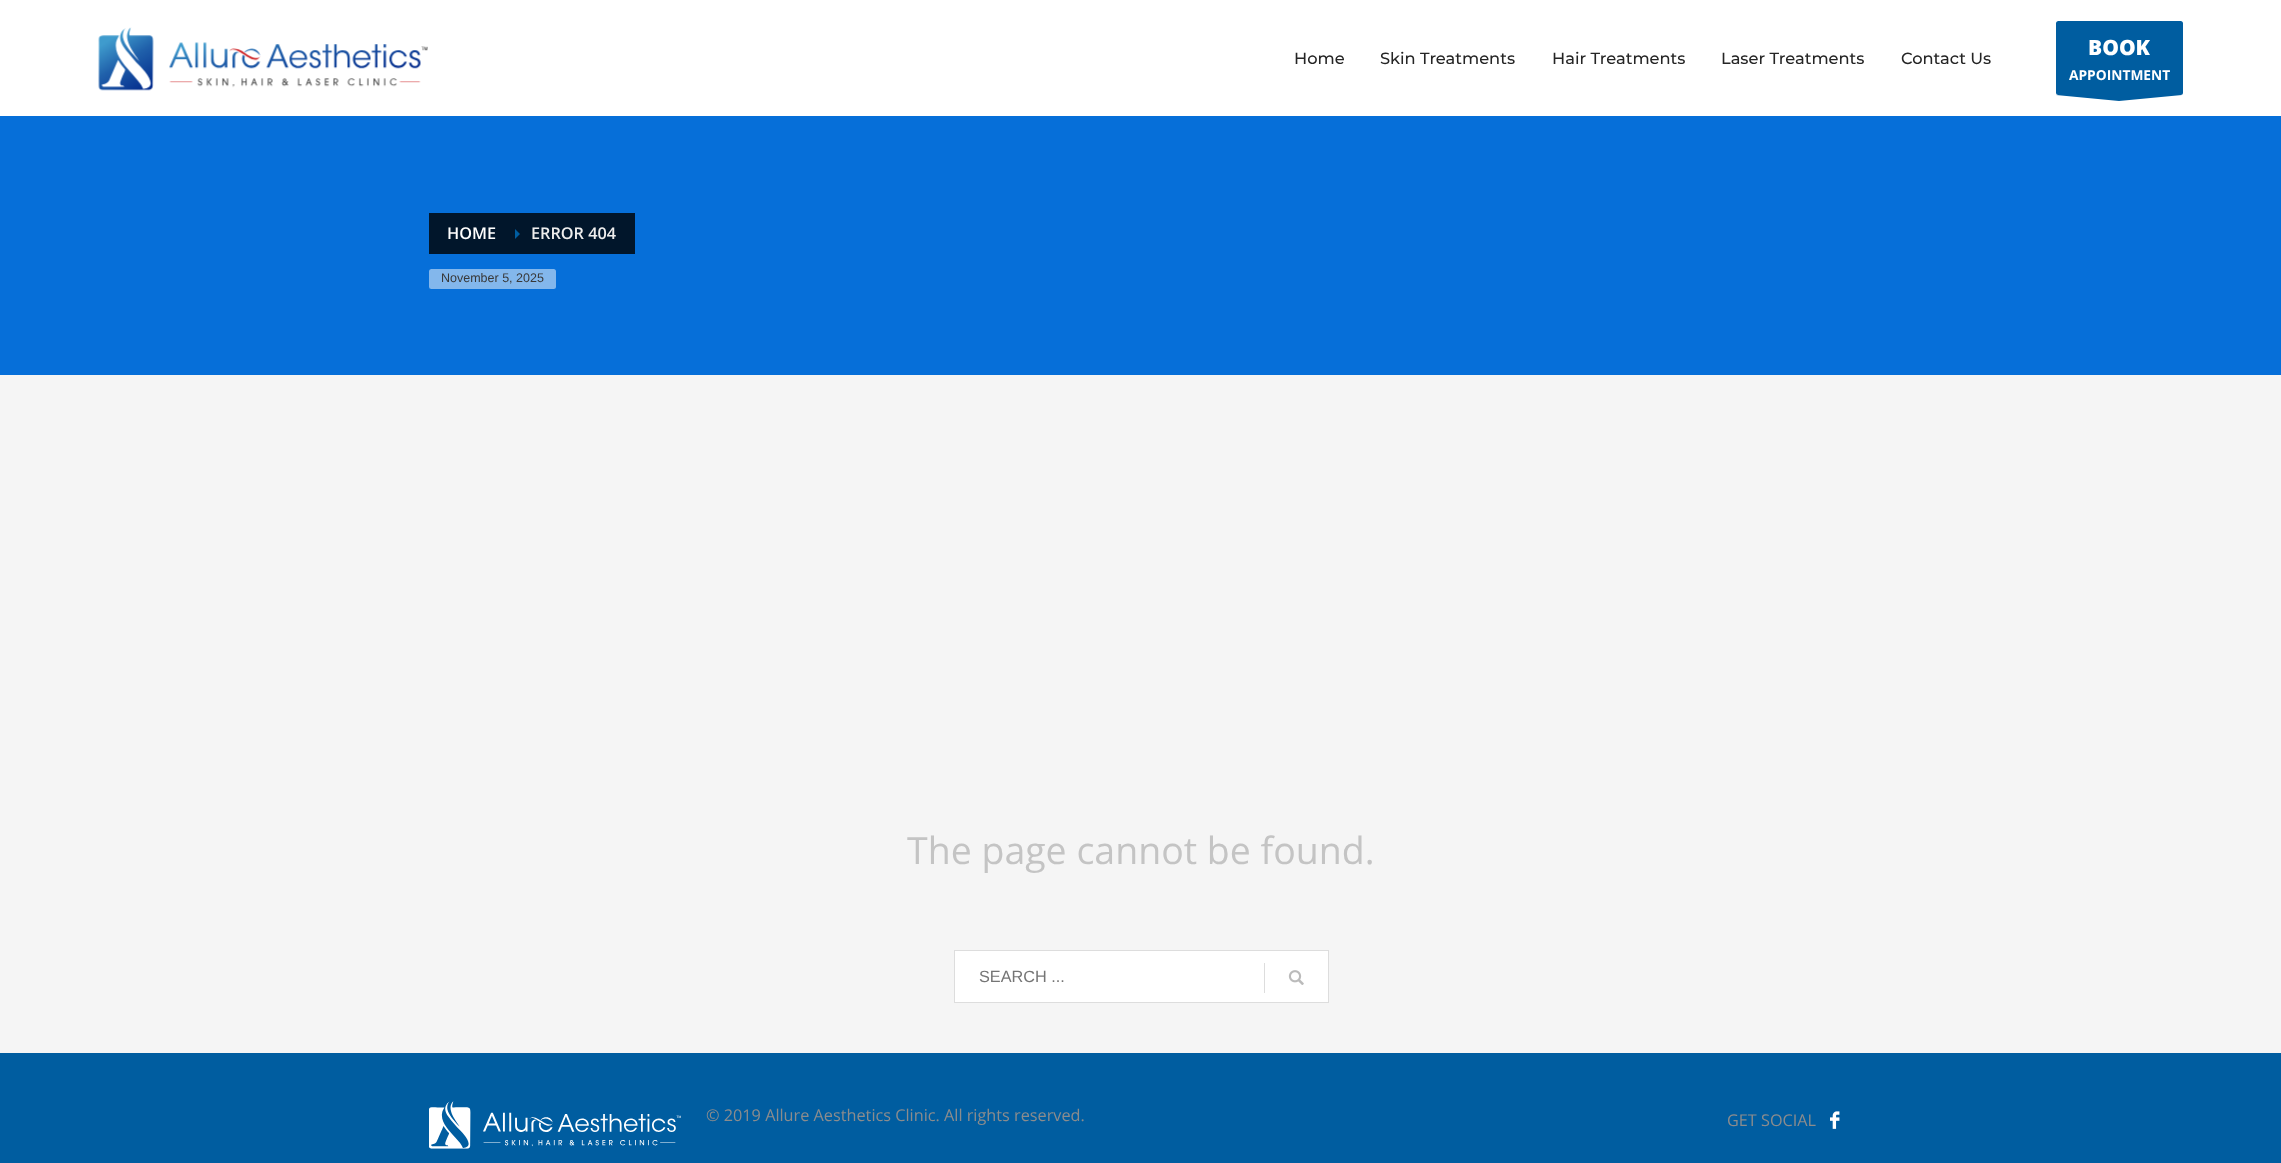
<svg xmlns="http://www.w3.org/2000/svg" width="2281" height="1163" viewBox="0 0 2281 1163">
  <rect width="100%" height="100%" fill="#f5f5f5"/>
  <rect x="0" y="0" width="2281" height="116" fill="#ffffff"/>
  <image x="98" y="27" width="330" height="64" href="img1.png"/>
  <text x="1294" y="64" font-family="Montserrat" font-size="16.25" font-weight="500" fill="#252525">Home</text>
  <text x="1380" y="64" font-family="Montserrat" font-size="16.25" font-weight="500" fill="#252525">Skin Treatments</text>
  <text x="1552" y="64" font-family="Montserrat" font-size="16.25" font-weight="500" fill="#252525">Hair Treatments</text>
  <text x="1721" y="64" font-family="Montserrat" font-size="16.25" font-weight="500" fill="#252525">Laser Treatments</text>
  <text x="1901" y="64" font-family="Montserrat" font-size="16.25" font-weight="500" fill="#252525">Contact Us</text>
  <rect x="2056" y="21" width="127" height="74" rx="2.5" fill="#005da0"/>
  <text x="2088" y="55" font-family="Open Sans" font-size="21" font-weight="800" fill="#ffffff">BOOK</text>
  <text x="2069" y="80" font-family="Open Sans" font-size="13.75" font-weight="bold" fill="#ffffff">APPOINTMENT</text>
  <path d="M2182 95L2119 101L2056 95Z" fill="#005da0" fill-rule="evenodd"/>
  <rect x="0" y="116" width="2281" height="259" fill="#066fd9"/>
  <rect x="429" y="213" width="206" height="41" fill="#01162b"/>
  <text x="447" y="239" font-family="Open Sans" font-size="16.25" font-weight="600" fill="#ffffff">HOME</text>
  <path d="M515 239V229L520 234Z" fill="#005da0"/>
  <text x="531" y="239" font-family="Open Sans" font-size="16.25" font-weight="600" fill="#eeeeee">ERROR 404</text>
  <rect x="429" y="269" width="127" height="20" rx="2.5" fill="#83b7ec"/>
  <text x="441" y="282" font-family="Liberation Sans" font-size="12.5" fill="#383838">November 5, 2025</text>
  <text x="907" y="864" font-family="Open Sans" font-size="37.5" fill="#c4c4c4">The page cannot be found.</text>
  <rect x="954.5" y="950.5" width="374" height="52" fill="#ffffff" stroke="#dddddd"/>
  <text x="979" y="982" font-family="Liberation Sans" font-size="16.25" fill="#757575">SEARCH ...</text>
  <rect x="1264" y="963" width="1" height="30" fill="#dddddd"/>
  <image x="1288" y="970" width="16" height="15" href="img2.png"/>
  <rect x="0" y="1053" width="2281" height="110" fill="#005da0"/>
  <image x="429" y="1101" width="252" height="48" href="img3.png"/>
  <text x="706" y="1121" font-family="Open Sans" font-size="16.25" fill="#8b8c8d">© 2019 Allure Aesthetics Clinic. All rights reserved.</text>
  <text x="1727" y="1126" font-family="Open Sans" font-size="16.25" fill="#8b8c8d">GET SOCIAL</text>
  <image x="1830" y="1111" width="10" height="18" href="img4.png"/>
</svg>
